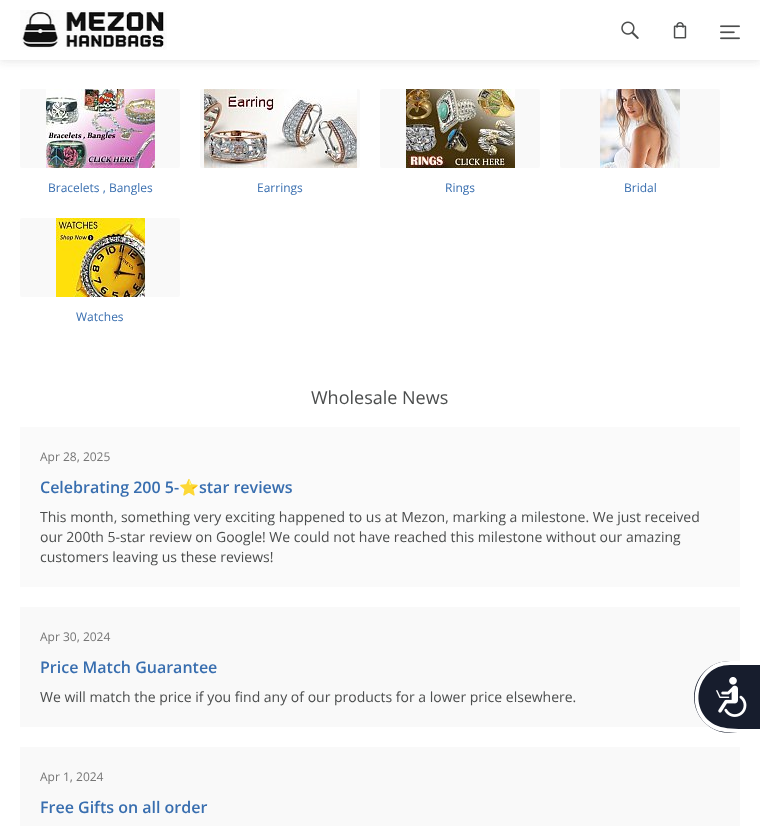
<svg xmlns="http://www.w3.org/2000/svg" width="760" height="826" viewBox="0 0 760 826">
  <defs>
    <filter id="blur1" x="-50%" y="-200%" width="200%" height="500%"><feGaussianBlur stdDeviation="5"/></filter>
  </defs>
  <rect width="100%" height="100%" fill="#ffffff"/>
  <rect x="0" y="0" width="760" height="60" fill="#4a494a" fill-opacity="0.2" filter="url(#blur1)"/>
  <rect x="0" y="0" width="760" height="60" fill="#ffffff"/>
  <image x="20" y="10" width="147" height="40" href="img1.png"/>
  <image x="621" y="21" width="18" height="18" href="img2.png"/>
  <image x="673" y="22" width="14" height="17" href="img3.png"/>
  <image x="720" y="25" width="20" height="15" href="img4.png"/>
  <rect x="20" y="89" width="160" height="79" rx="2" fill="#f9f9f9"/>
  <image x="46" y="89" width="109" height="79" href="img5.png"/>
  <text x="48" y="192" font-family="Open Sans" font-size="12" fill="#386eaf">Bracelets , Bangles</text>
  <rect x="200" y="89" width="160" height="79" rx="2" fill="#f9f9f9"/>
  <image x="204" y="89" width="153" height="79" href="img6.png"/>
  <text x="257" y="192" font-family="Open Sans" font-size="12" fill="#386eaf">Earrings</text>
  <rect x="380" y="89" width="160" height="79" rx="2" fill="#f9f9f9"/>
  <image x="406" y="89" width="109" height="79" href="img7.png"/>
  <text x="445" y="192" font-family="Open Sans" font-size="12" fill="#386eaf">Rings</text>
  <rect x="560" y="89" width="160" height="79" rx="2" fill="#f9f9f9"/>
  <image x="600" y="89" width="80" height="79" href="img8.png"/>
  <text x="624" y="192" font-family="Open Sans" font-size="12" fill="#386eaf">Bridal</text>
  <rect x="20" y="218" width="160" height="79" rx="2" fill="#f9f9f9"/>
  <image x="56" y="218" width="89" height="79" href="img9.png"/>
  <text x="76" y="321" font-family="Open Sans" font-size="12" fill="#386eaf">Watches</text>
  <text x="311" y="404" font-family="Open Sans" font-size="18" fill="#4b4d4d">Wholesale News</text>
  <rect x="20" y="427" width="720" height="160" fill="#fafafa"/>
  <text x="40" y="461" font-family="Open Sans" font-size="12" fill="#757575">Apr 28, 2025</text>
  <text x="40" y="493" font-family="Open Sans" font-size="16" font-weight="600" fill="#386eaf">Celebrating 200 5-</text>
  <text x="179" y="493" font-family="Noto Color Emoji" font-size="16" font-weight="bold" fill="#386eaf">⭐️</text>
  <text x="199" y="493" font-family="Open Sans" font-size="16" font-weight="600" fill="#386eaf">star reviews</text>
  <text x="40" y="522" font-family="Open Sans" font-size="14" fill="#4b4d4d">This month, something very exciting happened to us at Mezon, marking a milestone. We just received</text>
  <text x="40" y="542" font-family="Open Sans" font-size="14" fill="#4b4d4d">our 200th 5-star review on Google! We could not have reached this milestone without our amazing</text>
  <text x="40" y="562" font-family="Open Sans" font-size="14" fill="#4b4d4d">customers leaving us these reviews!</text>
  <rect x="20" y="607" width="720" height="120" fill="#f9f9f9"/>
  <text x="40" y="641" font-family="Open Sans" font-size="12" fill="#757575">Apr 30, 2024</text>
  <text x="40" y="673" font-family="Open Sans" font-size="16" font-weight="600" fill="#386eaf">Price Match Guarantee</text>
  <text x="40" y="702" font-family="Open Sans" font-size="14" fill="#4b4d4d">We will match the price if you find any of our products for a lower price elsewhere.</text>
  <rect x="20" y="747" width="720" height="79" fill="#f9f9f9"/>
  <text x="40" y="781" font-family="Open Sans" font-size="12" fill="#757575">Apr 1, 2024</text>
  <text x="40" y="813" font-family="Open Sans" font-size="16" font-weight="600" fill="#386eaf">Free Gifts on all order</text>
  <path d="M730 661H760V733H730C710 733 694 717 694 697C694 677 710 661 730 661Z" fill="#171d2d"/>
  <path d="M730 661H760V733C748 733 727 734 716 730C681 715 692 661 730 661ZM730 665H760V729C749 729 728 730 718 726C686 713 696 665 730 665Z" fill="#ffffff" fill-rule="evenodd"/>
  <image x="716" y="677" width="31" height="40" href="img10.png"/>
</svg>
